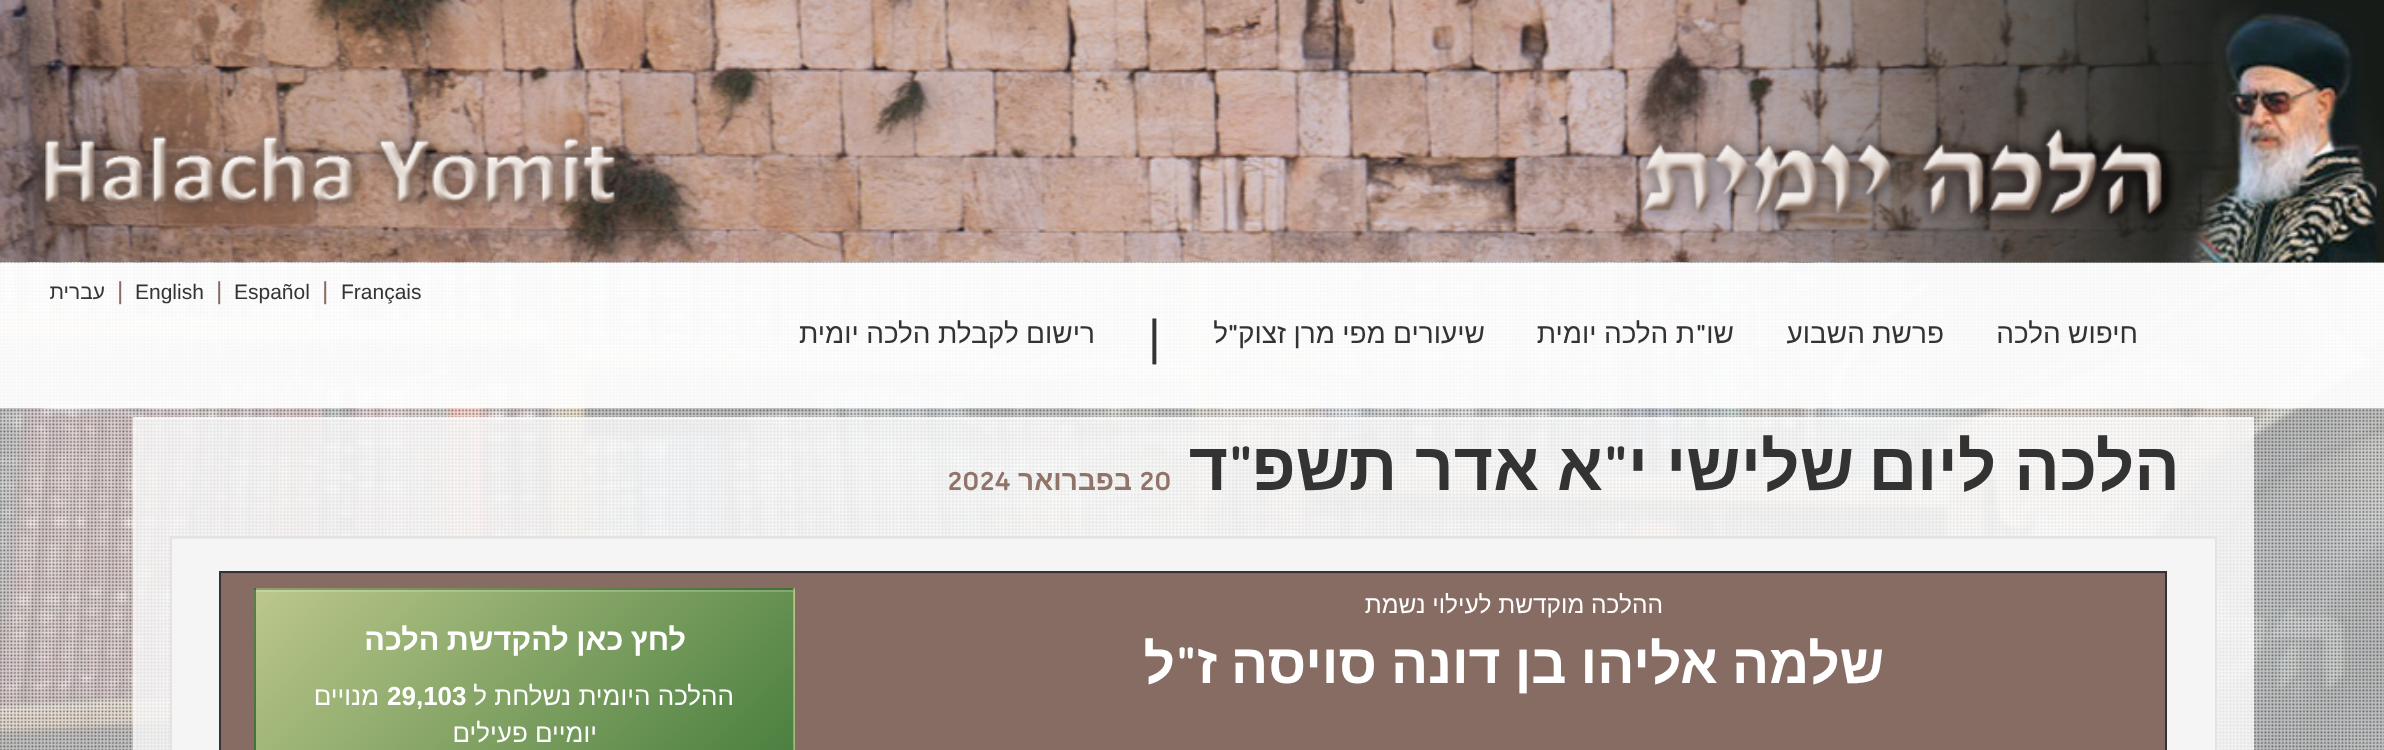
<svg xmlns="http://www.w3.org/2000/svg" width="2384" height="750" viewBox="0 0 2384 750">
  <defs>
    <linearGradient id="g1" gradientUnits="userSpaceOnUse" x1="-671" y1="671" x2="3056" y2="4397"><stop offset="0" stop-color="#ffffff"/><stop offset="1" stop-color="#e5e5e5"/></linearGradient>
    <linearGradient id="g2" gradientUnits="userSpaceOnUse" x1="-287" y1="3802" x2="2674" y2="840"><stop offset="0" stop-color="#ffffff" stop-opacity="0.8"/><stop offset="0.5" stop-color="#f7f7f7" stop-opacity="0.8"/><stop offset="0.51" stop-color="#f9f9f9" stop-opacity="0.8"/><stop offset="1" stop-color="#ffffff" stop-opacity="0.8"/></linearGradient>
    <linearGradient id="g3" gradientUnits="userSpaceOnUse" x1="-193" y1="320" x2="166" y2="679"><stop offset="0" stop-color="#bcc78c"/><stop offset="0.44" stop-color="#89a769"/><stop offset="1" stop-color="#487e3e"/></linearGradient>
    <linearGradient id="g4" gradientUnits="userSpaceOnUse" x1="345" y1="320" x2="704" y2="679"><stop offset="0" stop-color="#bcc78c"/><stop offset="0.44" stop-color="#89a769"/><stop offset="1" stop-color="#487e3e"/></linearGradient>
    <linearGradient id="g5" gradientUnits="userSpaceOnUse" x1="882" y1="320" x2="1241" y2="679"><stop offset="0" stop-color="#bcc78c"/><stop offset="0.44" stop-color="#89a769"/><stop offset="1" stop-color="#487e3e"/></linearGradient>
    <linearGradient id="g6" gradientUnits="userSpaceOnUse" x1="-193" y1="501" x2="166" y2="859"><stop offset="0" stop-color="#bcc78c"/><stop offset="0.44" stop-color="#89a769"/><stop offset="1" stop-color="#487e3e"/></linearGradient>
    <linearGradient id="g7" gradientUnits="userSpaceOnUse" x1="345" y1="501" x2="704" y2="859"><stop offset="0" stop-color="#bcc78c"/><stop offset="0.44" stop-color="#89a769"/><stop offset="1" stop-color="#487e3e"/></linearGradient>
    <linearGradient id="g8" gradientUnits="userSpaceOnUse" x1="882" y1="501" x2="1241" y2="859"><stop offset="0" stop-color="#bbc78b"/><stop offset="0.44" stop-color="#89a769"/><stop offset="1" stop-color="#487d3e"/></linearGradient>
  </defs>
  <rect width="100%" height="100%" fill="#ffffff"/>
  <rect x="0" y="262" width="2384" height="488" fill="url(#g1)"/>
  <image x="0" y="0" width="2265" height="262" href="img1.png"/>
  <image x="0" y="262" width="2384" height="488" href="img4.png"/>
  <image x="0" y="262" width="2384" height="488" href="img5.png"/>
  <image x="1633" y="0" width="751" height="263" href="img2.png"/>
  <image x="37" y="129" width="584" height="85" href="img3.png"/>
  <rect x="0" y="263" width="2384" height="145" fill="#ffffff" fill-opacity="0.93"/>
  <text x="341" y="299" font-family="Liberation Sans" font-size="21" fill="#333333">Français</text>
  <text x="322" y="299" font-family="Liberation Sans" font-size="24.5" fill="#866c62">|</text>
  <text x="234" y="299" font-family="Liberation Sans" font-size="21" fill="#333333">Español</text>
  <text x="216" y="299" font-family="Liberation Sans" font-size="24.5" fill="#866c62">|</text>
  <text x="135" y="299" font-family="Liberation Sans" font-size="21" fill="#333333">English</text>
  <text x="117" y="299" font-family="Liberation Sans" font-size="24.5" fill="#866c62">|</text>
  <text x="105" y="299" font-family="Liberation Sans" font-size="21" direction="rtl" fill="#333333">עברית</text>
  <text x="2138" y="343" word-spacing="-0.5" font-family="Liberation Sans" font-size="28" direction="rtl" fill="#333333">חיפוש הלכה</text>
  <text x="1944" y="343" word-spacing="-0.5" font-family="Liberation Sans" font-size="28" direction="rtl" fill="#333333">פרשת השבוע</text>
  <text x="1734" y="343" font-family="Liberation Sans" font-size="28" direction="rtl" fill="#333333">שו</text>
  <text x="1706" y="343" font-family="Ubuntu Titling" font-size="28" font-weight="bold" direction="rtl" fill="#333333">"</text>
  <text x="1695" y="343" word-spacing="-0.5" font-family="Liberation Sans" font-size="28" direction="rtl" fill="#333333">ת הלכה יומית</text>
  <text x="1485" y="343" word-spacing="-0.5" font-family="Liberation Sans" font-size="28" direction="rtl" fill="#333333">שיעורים מפי מרן זצוק</text>
  <text x="1238" y="343" font-family="Ubuntu Titling" font-size="28" font-weight="bold" direction="rtl" fill="#333333">"</text>
  <text x="1228" y="343" font-family="Liberation Sans" font-size="28" direction="rtl" fill="#333333">ל</text>
  <text x="1148" y="354" font-family="Liberation Sans" font-size="49" fill="#333333">|</text>
  <text x="1095" y="343" word-spacing="-0.5" font-family="Liberation Sans" font-size="28" direction="rtl" fill="#333333">רישום לקבלת הלכה יומית</text>
  <rect x="135" y="418" width="2117" height="332" fill="url(#g2)"/>
  <rect x="134" y="418" width="2119" height="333" fill="none" stroke="#ffffff" stroke-opacity="0.8" stroke-width="2"/>
  <text x="2180" y="490" word-spacing="-1" font-family="Liberation Sans" font-size="67.5" font-weight="bold" direction="rtl" fill="#333333">הלכה ליום</text>
  <text x="1854" y="490" word-spacing="-1" font-family="Liberation Sans" font-size="67.5" font-weight="bold" direction="rtl" fill="#333333">שלישי י</text>
  <text x="1628" y="490" font-family="Ubuntu Titling" font-size="67.5" font-weight="bold" direction="rtl" fill="#333333">"</text>
  <text x="1603" y="490" word-spacing="-1" font-family="Liberation Sans" font-size="67.5" font-weight="bold" direction="rtl" fill="#333333">א אדר תשפ</text>
  <text x="1253" y="490" font-family="Ubuntu Titling" font-size="67.5" font-weight="bold" direction="rtl" fill="#333333">"</text>
  <text x="1228" y="490" font-family="Liberation Sans" font-size="67.5" font-weight="bold" direction="rtl" fill="#333333">ד</text>
  <text x="1139" y="490" font-family="Ubuntu Titling" font-size="28" font-weight="bold" fill="#907469">20</text>
  <text x="1132" y="490" font-family="Liberation Sans" font-size="28" font-weight="bold" direction="rtl" fill="#907469">בפברואר</text>
  <text x="947" y="490" font-family="Ubuntu Titling" font-size="28" font-weight="bold" fill="#907469">2024</text>
  <rect x="172" y="539" width="2043" height="211" fill="#f5f5f5"/>
  <rect x="172" y="538" width="2044" height="1" fill="#e9e9e9"/>
  <rect x="171" y="537" width="2045" height="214" fill="none" stroke="#e3e3e3" stroke-width="2"/>
  <rect x="221" y="574" width="1944" height="176" fill="#866c62"/>
  <rect x="221" y="573" width="1944" height="1" fill="#7f675d"/>
  <rect x="219" y="571" width="1948" height="2" fill="#333333"/>
  <rect x="2165" y="571" width="2" height="179" fill="#333333"/>
  <rect x="219" y="571" width="2" height="179" fill="#333333"/>
  <text x="1663" y="613" font-family="Liberation Sans" font-size="24.5" direction="rtl" fill="#ffffff">ההלכה מוקדשת לעילוי נשמת</text>
  <text x="1884" y="683" word-spacing="-1.25" font-family="Liberation Sans" font-size="55.1" font-weight="bold" direction="rtl" fill="#ffffff">שלמה אליהו בן דונה סויסה ז</text>
  <text x="1196" y="683" font-family="Ubuntu Titling" font-size="55.1" font-weight="bold" direction="rtl" fill="#ffffff">"</text>
  <text x="1175" y="683" font-family="Liberation Sans" font-size="55.1" font-weight="bold" direction="rtl" fill="#ffffff">ל</text>
  <rect x="254" y="588" width="2" height="2" fill="url(#g3)"/>
  <rect x="256" y="588" width="537" height="2" fill="url(#g4)"/>
  <rect x="793" y="588" width="2" height="2" fill="url(#g5)"/>
  <rect x="254" y="590" width="2" height="160" fill="url(#g6)"/>
  <rect x="256" y="590" width="537" height="160" fill="url(#g7)"/>
  <rect x="793" y="590" width="2" height="160" fill="url(#g8)"/>
  <rect x="256" y="590" width="537" height="2" fill="#ffffff" fill-opacity="0.2"/>
  <path d="M254 588H794L793 590H256Z" fill="#000000" fill-opacity="0.1"/>
  <path d="M794 588V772L793 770V590Z" fill="#000000" fill-opacity="0.1"/>
  <path d="M254 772V588L256 590V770Z" fill="#000000" fill-opacity="0.1"/>
  <text x="686" y="650" word-spacing="-1" font-family="Liberation Sans" font-size="30.6" font-weight="bold" direction="rtl" fill="#ffffff">לחץ כאן להקדשת הלכה</text>
  <text x="734" y="705" font-family="Liberation Sans" font-size="26" direction="rtl" fill="#ffffff">ההלכה היומית נשלחת ל</text>
  <text x="387" y="705" font-family="Liberation Sans" font-size="26" font-weight="bold" fill="#ffffff">29,103</text>
  <text x="379" y="705" font-family="Liberation Sans" font-size="26" direction="rtl" fill="#ffffff">מנויים</text>
  <text x="597" y="742" font-family="Liberation Sans" font-size="26" direction="rtl" fill="#ffffff">יומיים פעילים</text>
</svg>
